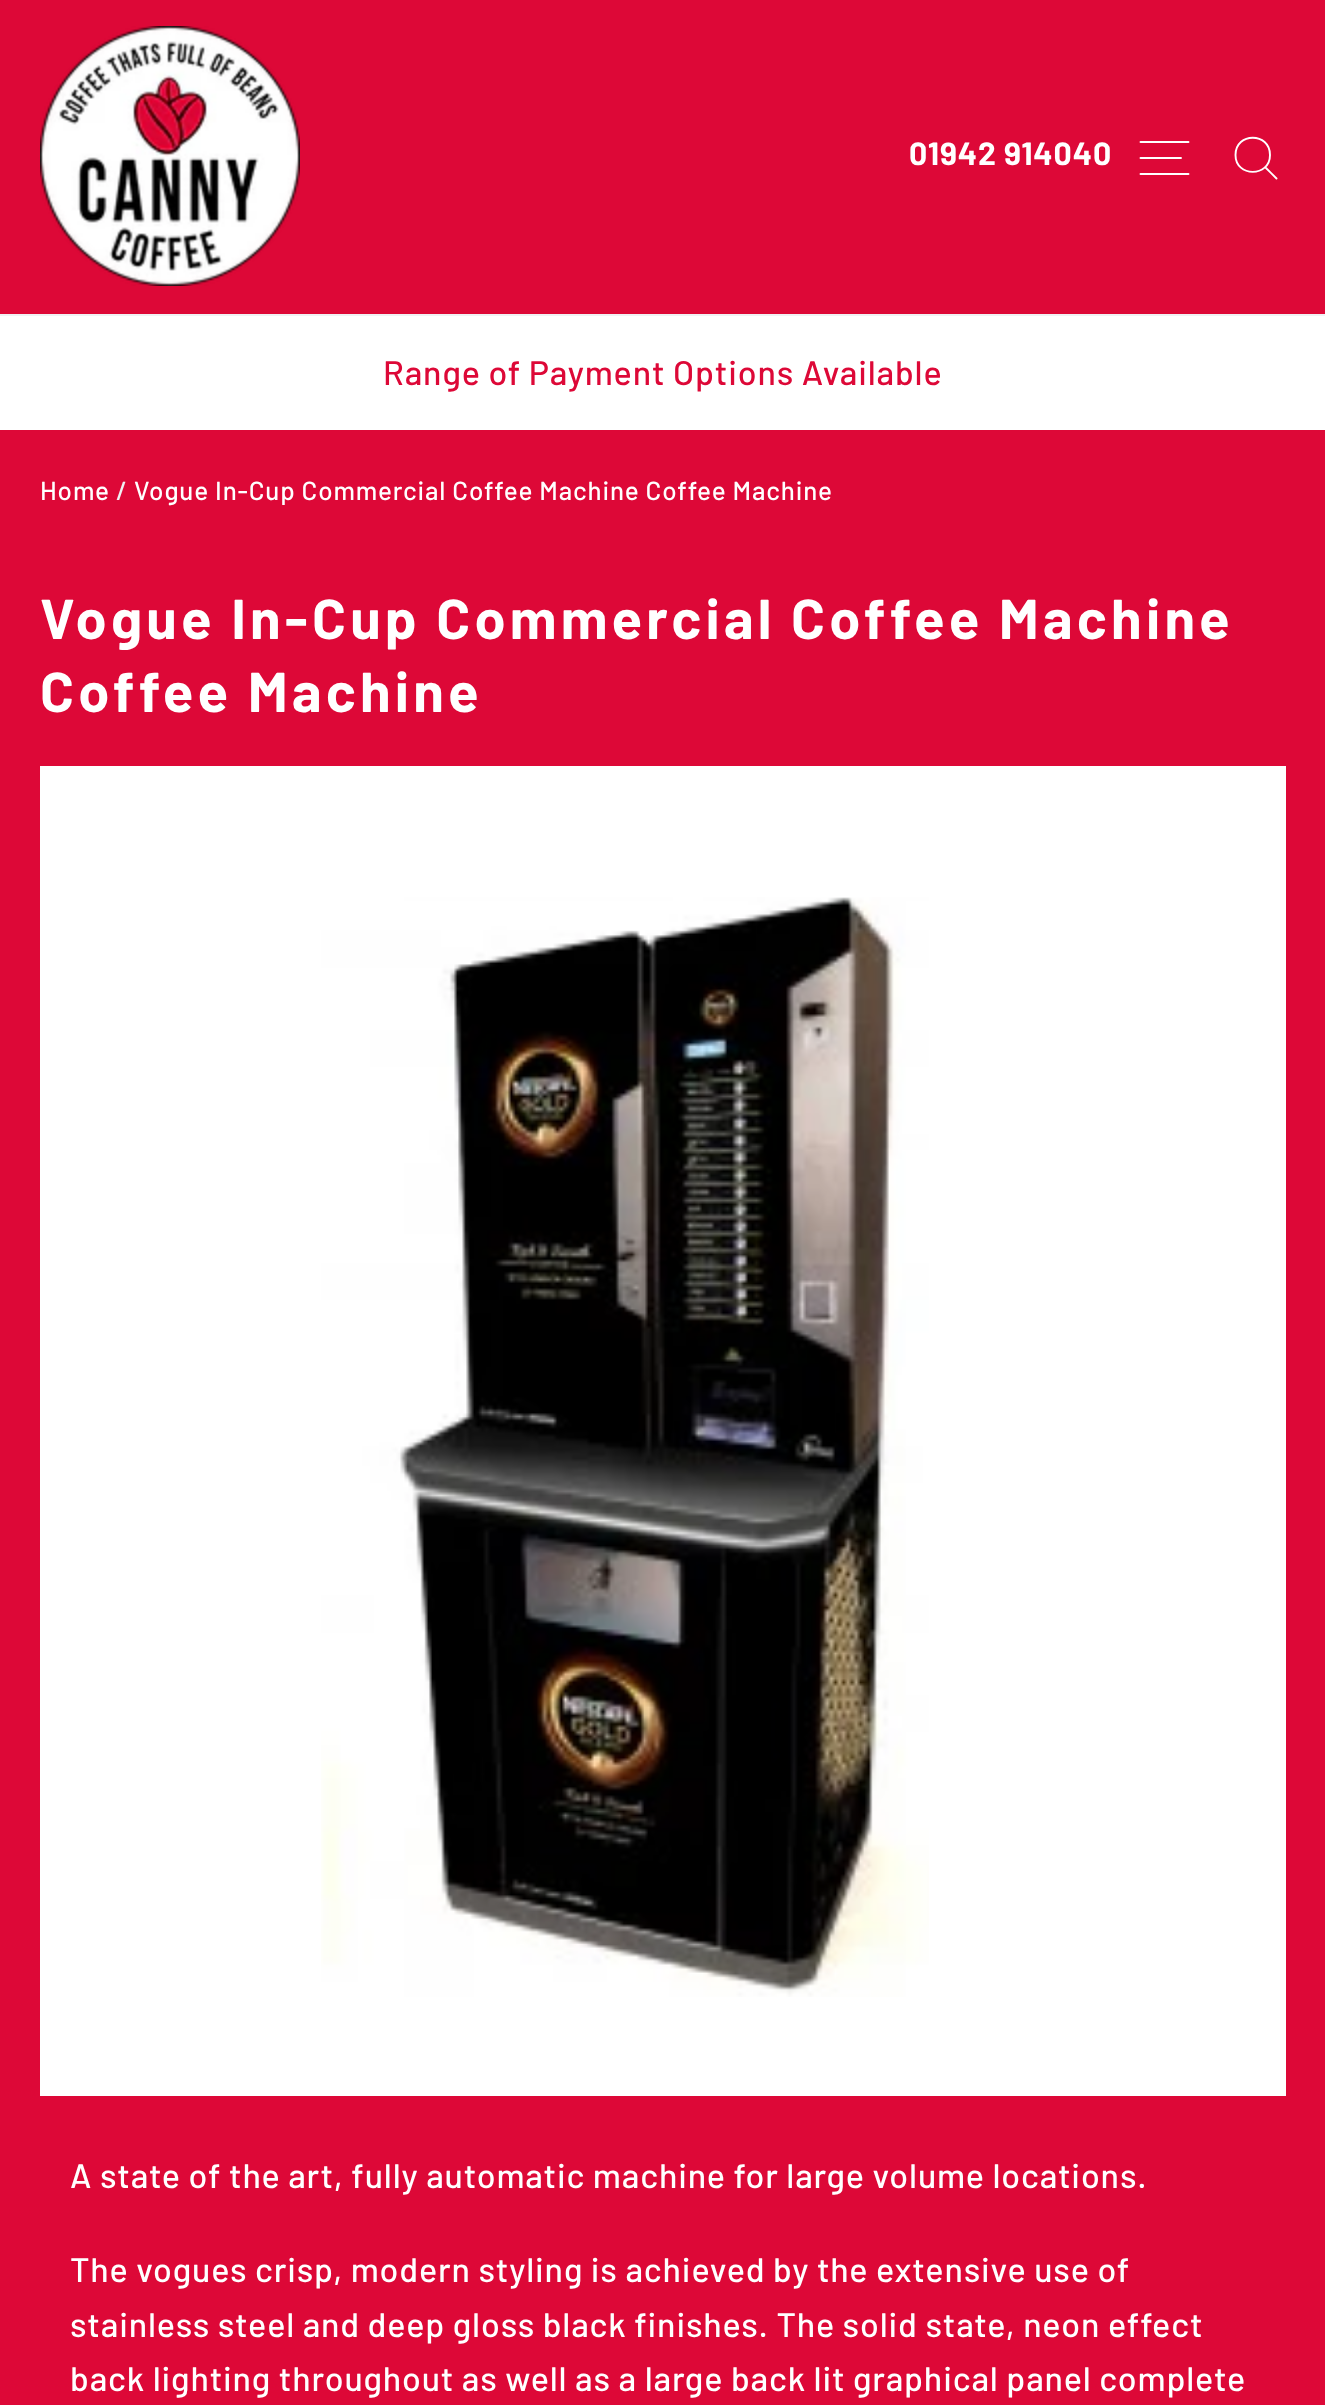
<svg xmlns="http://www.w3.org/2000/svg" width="1325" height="2405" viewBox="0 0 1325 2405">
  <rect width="100%" height="100%" fill="#dd0837"/>
  <rect x="0" y="314" width="1325" height="2" fill="#f0f1f3"/>
  <image x="40" y="26" width="260" height="260" href="img1.png"/>
  <text x="909" y="165" font-family="Barlow" font-size="32" font-weight="bold" letter-spacing="0.85" fill="#ffffff">01942 914040</text>
  <path d="M1140.5 142H1188.5M1140.5 158H1181M1140.5 174H1188.5" fill="none" stroke="#ffffff" stroke-width="1.9" stroke-linecap="round" stroke-linejoin="round"/>
  <path d="M1270 155C1270 177.5 1235.5 177.5 1235.5 155C1235.5 132 1270 132 1270 155ZM1276.5 178.5L1265.5 167.5" fill="none" stroke="#ffffff" stroke-width="1.9" stroke-linecap="round" stroke-linejoin="round"/>
  <rect x="0" y="316" width="1325" height="114" fill="#ffffff"/>
  <text x="383" y="385" font-family="Barlow" font-size="34" font-weight="500" letter-spacing="0.85" fill="#dd0837">Range of Payment Options Available</text>
  <text x="40" y="500" font-family="Barlow" font-size="26" font-weight="500" letter-spacing="0.85" fill="#ffffff">Home</text>
  <text x="116" y="500" font-family="Barlow" font-size="26" font-weight="500" letter-spacing="0.85" fill="#f0f1f3">/</text>
  <text x="134" y="500" font-family="Barlow" font-size="26" font-weight="500" letter-spacing="0.85" fill="#ffffff">Vogue In-Cup Commercial Coffee Machine Coffee Machine</text>
  <text x="40" y="639" font-family="Barlow" font-size="56" font-weight="bold" letter-spacing="4.2" fill="#ffffff">Vogue In-Cup Commercial Coffee Machine</text>
  <text x="40" y="712" font-family="Barlow" font-size="56" font-weight="bold" letter-spacing="4.2" fill="#ffffff">Coffee Machine</text>
  <rect x="40" y="766" width="1246" height="1330" fill="#ffffff"/>
  <image x="321" y="897" width="608" height="1100" href="img2.png"/>
  <text x="70" y="2188" font-family="Barlow" font-size="34" font-weight="500" letter-spacing="0.85" fill="#ffffff">A state of the art, fully automatic machine for large volume locations.</text>
  <text x="70" y="2282" font-family="Barlow" font-size="34" font-weight="500" letter-spacing="0.85" fill="#ffffff">The vogues crisp, modern styling is achieved by the extensive use of</text>
  <text x="70" y="2337" font-family="Barlow" font-size="34" font-weight="500" letter-spacing="0.85" fill="#ffffff">stainless steel and deep gloss black finishes. The solid state, neon effect</text>
  <text x="70" y="2391" font-family="Barlow" font-size="34" font-weight="500" letter-spacing="0.85" fill="#ffffff">back lighting throughout as well as a large back lit graphical panel complete</text>
</svg>
